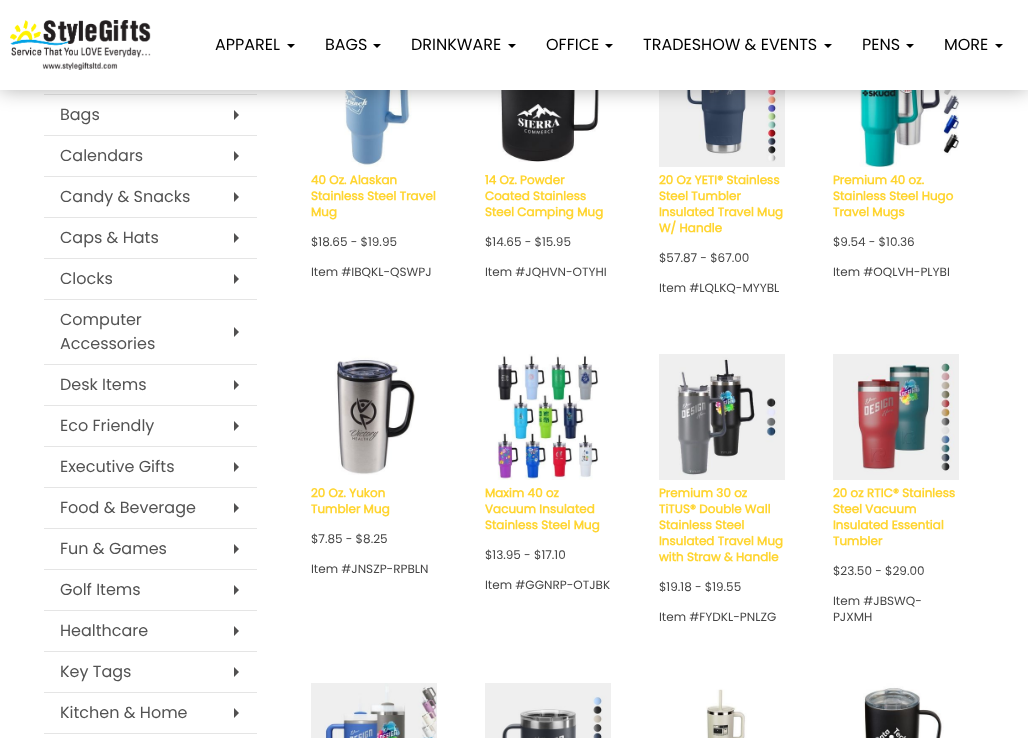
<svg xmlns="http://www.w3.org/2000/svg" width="1028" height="738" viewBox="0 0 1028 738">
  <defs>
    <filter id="blur1" x="-50%" y="-200%" width="200%" height="500%"><feGaussianBlur stdDeviation="10"/></filter>
  </defs>
  <rect width="100%" height="100%" fill="#ffffff"/>
  <rect x="44" y="94" width="213" height="1" fill="#e5e5e5"/>
  <path d="M234 120V110L239 115Z" fill="#515050"/>
  <image x="311" y="90" width="648" height="648" href="img2.png"/>
  <rect x="0" y="0" width="1028" height="90" fill="#000000" fill-opacity="0.3" filter="url(#blur1)"/>
  <rect x="0" y="0" width="1028" height="90" fill="#ffffff"/>
  <image x="10" y="20" width="141" height="50" href="img1.png"/>
  <text x="215" y="50" font-family="Poppins" font-size="16" fill="#000000">APPAREL</text>
  <path d="M287 44H295L291 48Z" fill="#000000"/>
  <text x="325" y="50" font-family="Poppins" font-size="16" fill="#000000">BAGS</text>
  <path d="M373 44H381L377 48Z" fill="#000000"/>
  <text x="411" y="50" font-family="Poppins" font-size="16" fill="#000000">DRINKWARE</text>
  <path d="M508 44H516L512 48Z" fill="#000000"/>
  <text x="546" y="50" font-family="Poppins" font-size="16" fill="#000000">OFFICE</text>
  <path d="M605 44H613L609 48Z" fill="#000000"/>
  <text x="643" y="50" font-family="Poppins" font-size="16" fill="#000000">TRADESHOW &amp; EVENTS</text>
  <path d="M824 44H832L828 48Z" fill="#000000"/>
  <text x="862" y="50" font-family="Poppins" font-size="16" fill="#000000">PENS</text>
  <path d="M906 44H914L910 48Z" fill="#000000"/>
  <text x="944" y="50" font-family="Poppins" font-size="16" fill="#000000">MORE</text>
  <path d="M995 44H1003L999 48Z" fill="#000000"/>
  <text x="60" y="120" font-family="Poppins" font-size="16" fill="#535353">Bags</text>
  <rect x="44" y="135" width="213" height="1" fill="#e5e5e5"/>
  <text x="60" y="161" font-family="Poppins" font-size="16" fill="#535353">Calendars</text>
  <path d="M234 161V151L239 156Z" fill="#515050"/>
  <rect x="44" y="176" width="213" height="1" fill="#e5e5e5"/>
  <text x="60" y="202" font-family="Poppins" font-size="16" fill="#535353">Candy &amp; Snacks</text>
  <path d="M234 202V192L239 197Z" fill="#515050"/>
  <rect x="44" y="217" width="213" height="1" fill="#e5e5e5"/>
  <text x="60" y="243" font-family="Poppins" font-size="16" fill="#535353">Caps &amp; Hats</text>
  <path d="M234 243V233L239 238Z" fill="#515050"/>
  <rect x="44" y="258" width="213" height="1" fill="#e5e5e5"/>
  <text x="60" y="284" font-family="Poppins" font-size="16" fill="#535353">Clocks</text>
  <path d="M234 284V274L239 279Z" fill="#515050"/>
  <rect x="44" y="299" width="213" height="1" fill="#e5e5e5"/>
  <text x="60" y="325" font-family="Poppins" font-size="16" fill="#535353">Computer</text>
  <path d="M234 337V327L239 332Z" fill="#515050"/>
  <text x="60" y="349" font-family="Poppins" font-size="16" fill="#535353">Accessories</text>
  <rect x="44" y="364" width="213" height="1" fill="#e5e5e5"/>
  <text x="60" y="390" font-family="Poppins" font-size="16" fill="#535353">Desk Items</text>
  <path d="M234 390V380L239 385Z" fill="#515050"/>
  <rect x="44" y="405" width="213" height="1" fill="#e5e5e5"/>
  <text x="60" y="431" font-family="Poppins" font-size="16" fill="#535353">Eco Friendly</text>
  <path d="M234 431V421L239 426Z" fill="#515050"/>
  <rect x="44" y="446" width="213" height="1" fill="#e5e5e5"/>
  <text x="60" y="472" font-family="Poppins" font-size="16" fill="#535353">Executive Gifts</text>
  <path d="M234 472V462L239 467Z" fill="#515050"/>
  <rect x="44" y="487" width="213" height="1" fill="#e5e5e5"/>
  <text x="60" y="513" font-family="Poppins" font-size="16" fill="#535353">Food &amp; Beverage</text>
  <path d="M234 513V503L239 508Z" fill="#515050"/>
  <rect x="44" y="528" width="213" height="1" fill="#e5e5e5"/>
  <text x="60" y="554" font-family="Poppins" font-size="16" fill="#535353">Fun &amp; Games</text>
  <path d="M234 554V544L239 549Z" fill="#515050"/>
  <rect x="44" y="569" width="213" height="1" fill="#e5e5e5"/>
  <text x="60" y="595" font-family="Poppins" font-size="16" fill="#535353">Golf Items</text>
  <path d="M234 595V585L239 590Z" fill="#515050"/>
  <rect x="44" y="610" width="213" height="1" fill="#e5e5e5"/>
  <text x="60" y="636" font-family="Poppins" font-size="16" fill="#535353">Healthcare</text>
  <path d="M234 636V626L239 631Z" fill="#515050"/>
  <rect x="44" y="651" width="213" height="1" fill="#e5e5e5"/>
  <text x="60" y="677" font-family="Poppins" font-size="16" fill="#535353">Key Tags</text>
  <path d="M234 677V667L239 672Z" fill="#515050"/>
  <rect x="44" y="692" width="213" height="1" fill="#e5e5e5"/>
  <text x="60" y="718" font-family="Poppins" font-size="16" fill="#535353">Kitchen &amp; Home</text>
  <path d="M234 718V708L239 713Z" fill="#515050"/>
  <rect x="44" y="733" width="213" height="1" fill="#e5e5e5"/>
</svg>
